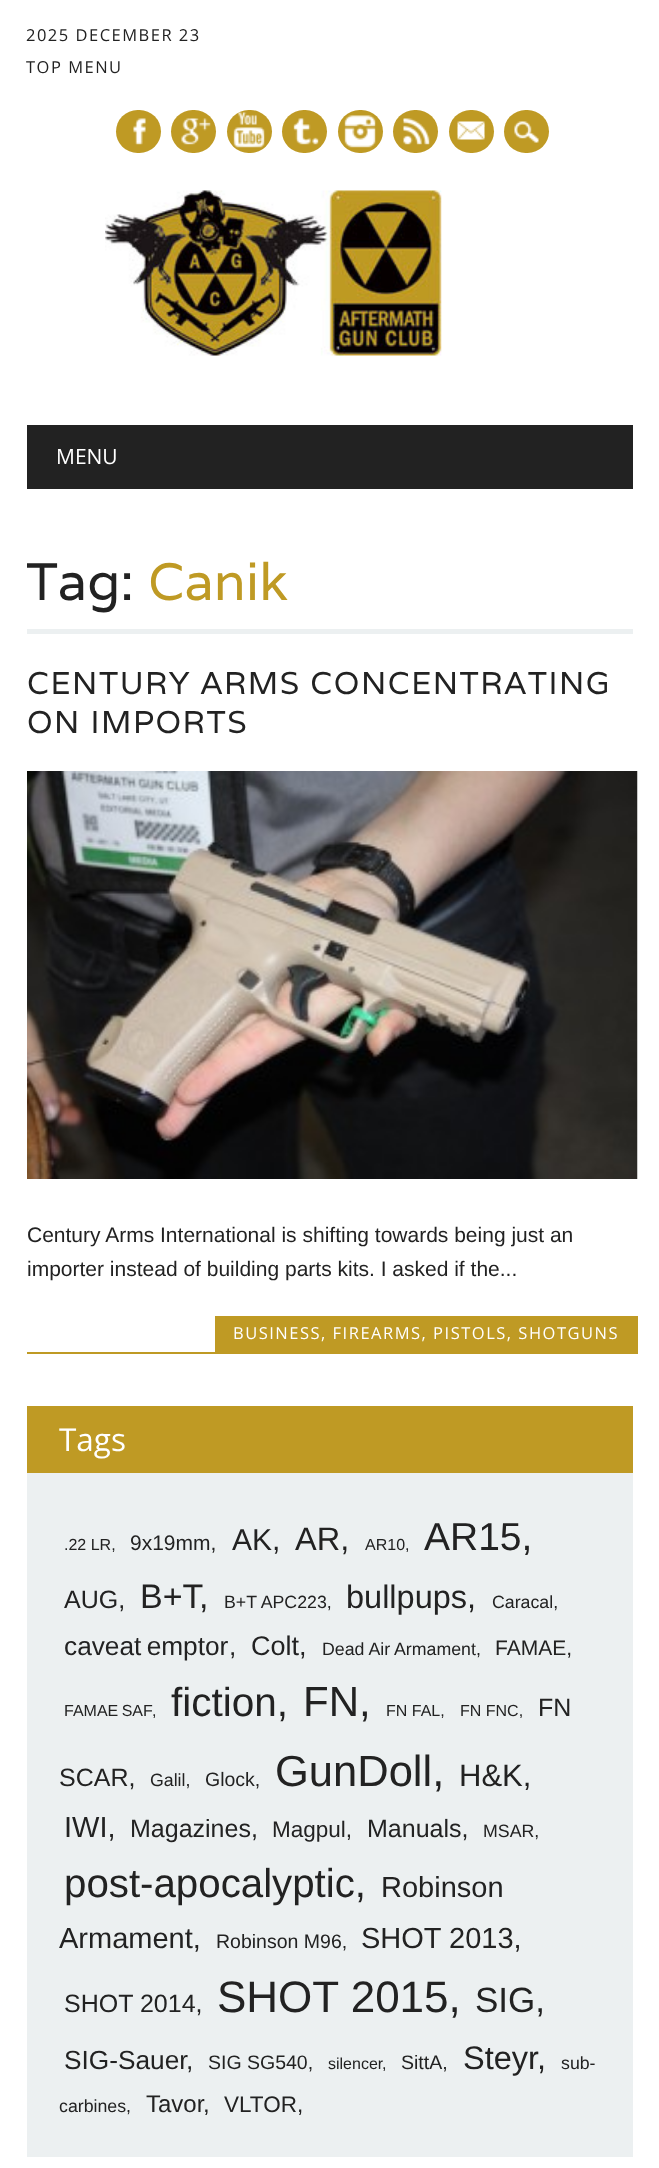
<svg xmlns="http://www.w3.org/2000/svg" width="659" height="2168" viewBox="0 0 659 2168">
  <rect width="100%" height="100%" fill="#ffffff"/>
  <text x="26" y="41" font-family="Open Sans" font-size="16.5" letter-spacing="1.5" fill="#222222">2025 DECEMBER 23</text>
  <text x="26" y="73" font-family="Open Sans" font-size="16.5" letter-spacing="1.5" fill="#222222">TOP MENU</text>
  <rect x="116" y="110" width="45" height="43" rx="21.5" fill="#bf9a24"/>
  <image x="133" y="118" width="13" height="27" href="img1.png"/>
  <rect x="171" y="110" width="45" height="43" rx="21.5" fill="#bf9a24"/>
  <image x="181" y="118" width="30" height="27" href="img2.png"/>
  <rect x="227" y="110" width="45" height="43" rx="21.5" fill="#bf9a24"/>
  <image x="233" y="112" width="32" height="36" href="img3.png"/>
  <rect x="282" y="110" width="45" height="43" rx="21.5" fill="#bf9a24"/>
  <image x="293" y="118" width="26" height="27" href="img4.png"/>
  <rect x="338" y="110" width="45" height="43" rx="21.5" fill="#bf9a24"/>
  <image x="344" y="115" width="32" height="33" href="img5.png"/>
  <rect x="393" y="110" width="45" height="43" rx="21.5" fill="#bf9a24"/>
  <image x="403" y="118" width="27" height="27" href="img6.png"/>
  <rect x="449" y="110" width="45" height="43" rx="21.5" fill="#bf9a24"/>
  <image x="457" y="121" width="28" height="19" href="img7.png"/>
  <rect x="504" y="110" width="45" height="43" rx="21.5" fill="#bf9a24"/>
  <image x="514" y="121" width="25" height="22" href="img8.png"/>
  <image x="105" y="190" width="337" height="166" href="img9.png"/>
  <rect x="27" y="425" width="606" height="64" fill="#222222"/>
  <text x="56" y="464" font-family="Open Sans" font-size="21" fill="#ffffff">MENU</text>
  <rect x="27" y="629" width="606" height="5" fill="#ecf0f1"/>
  <text x="26" y="600" font-family="Varela" font-size="52.5" fill="#222222">Tag:</text>
  <text x="148" y="600" font-family="Varela" font-size="52.5" fill="#bf9a24">Canik</text>
  <text x="27" y="694" font-family="Varela" font-size="31.5" letter-spacing="1.5" fill="#222222">CENTURY ARMS CONCENTRATING</text>
  <text x="27" y="733" font-family="Varela" font-size="31.5" letter-spacing="1.5" fill="#222222">ON IMPORTS</text>
  <image x="27" y="771" width="611" height="408" href="img10.png"/>
  <text x="27" y="1242" font-family="Liberation Sans" font-size="21" fill="#222222">Century Arms International is shifting towards being just an</text>
  <text x="27" y="1276" font-family="Liberation Sans" font-size="21" fill="#222222">importer instead of building parts kits. I asked if the...</text>
  <rect x="215" y="1316" width="423" height="36" fill="#bf9a24"/>
  <text x="233" y="1339" font-family="Open Sans" font-size="16.5" letter-spacing="1.5" fill="#ffffff">BUSINESS, FIREARMS, PISTOLS, SHOTGUNS</text>
  <rect x="27" y="1352" width="611" height="2" fill="#bf9a24"/>
  <rect x="27" y="1473" width="606" height="684" fill="#ecf0f1"/>
  <rect x="27" y="1406" width="606" height="67" fill="#bf9a24"/>
  <text x="59" y="1451" font-family="Open Sans" font-size="31.5" fill="#ffffff">Tags</text>
  <text x="64" y="1550" font-family="Liberation Sans" font-size="16" fill="#222222">.22 LR,</text>
  <text x="130" y="1550" font-family="Liberation Sans" font-size="21" fill="#222222">9x19mm,</text>
  <text x="232" y="1550" font-family="Liberation Sans" font-size="30" fill="#222222">AK,</text>
  <text x="295" y="1550" font-family="Liberation Sans" font-size="32.5" fill="#222222">AR,</text>
  <text x="365" y="1550" font-family="Liberation Sans" font-size="16" fill="#222222">AR10,</text>
  <text x="424" y="1550" font-family="Liberation Sans" font-size="39" fill="#222222">AR15,</text>
  <text x="64" y="1608" font-family="Liberation Sans" font-size="25" fill="#222222">AUG,</text>
  <text x="140" y="1608" font-family="Liberation Sans" font-size="34" fill="#222222">B+T</text>
  <text x="199" y="1608" font-family="Liberation Sans" font-size="34" fill="#222222">,</text>
  <text x="224" y="1608" font-family="Liberation Sans" font-size="17.75" fill="#222222">B+T APC223,</text>
  <text x="346" y="1608" font-family="Liberation Sans" font-size="32.5" fill="#222222">bullpups,</text>
  <text x="492" y="1608" font-family="Liberation Sans" font-size="17.75" fill="#222222">Caracal,</text>
  <text x="64" y="1655" word-spacing="-2" font-family="Liberation Sans" font-size="26.25" fill="#222222">caveat emptor</text>
  <text x="229" y="1655" font-family="Liberation Sans" font-size="26.25" fill="#222222">,</text>
  <text x="251" y="1655" font-family="Liberation Sans" font-size="27" fill="#222222">Colt,</text>
  <text x="322" y="1655" font-family="Liberation Sans" font-size="17.75" fill="#222222">Dead Air Armament,</text>
  <text x="495" y="1655" font-family="Liberation Sans" font-size="21" fill="#222222">FAMAE,</text>
  <text x="64" y="1716" word-spacing="-1" font-family="Liberation Sans" font-size="16" fill="#222222">FAMAE SAF</text>
  <text x="152" y="1716" font-family="Liberation Sans" font-size="16" fill="#222222">,</text>
  <text x="171" y="1716" font-family="Liberation Sans" font-size="40.5" fill="#222222">fiction,</text>
  <text x="303" y="1716" font-family="Liberation Sans" font-size="42" fill="#222222">FN,</text>
  <text x="386" y="1716" font-family="Liberation Sans" font-size="16" fill="#222222">FN FAL,</text>
  <text x="460" y="1716" font-family="Liberation Sans" font-size="16" fill="#222222">FN FNC,</text>
  <text x="538" y="1716" font-family="Liberation Sans" font-size="25" fill="#222222">FN</text>
  <text x="59" y="1786" font-family="Liberation Sans" font-size="25" fill="#222222">SCAR,</text>
  <text x="150" y="1786" font-family="Liberation Sans" font-size="17.75" fill="#222222">Galil,</text>
  <text x="205" y="1786" font-family="Liberation Sans" font-size="19.5" fill="#222222">Glock,</text>
  <text x="275" y="1786" font-family="Liberation Sans" font-size="43.5" fill="#222222">GunDoll,</text>
  <text x="459" y="1786" font-family="Liberation Sans" font-size="31" fill="#222222">H&amp;K,</text>
  <text x="64" y="1837" font-family="Liberation Sans" font-size="29" fill="#222222">IWI,</text>
  <text x="130" y="1837" font-family="Liberation Sans" font-size="25" fill="#222222">Magazines,</text>
  <text x="272" y="1837" font-family="Liberation Sans" font-size="22.5" fill="#222222">Magpul,</text>
  <text x="367" y="1837" font-family="Liberation Sans" font-size="25" fill="#222222">Manuals,</text>
  <text x="483" y="1837" font-family="Liberation Sans" font-size="17.75" fill="#222222">MSAR,</text>
  <text x="64" y="1897" font-family="Liberation Sans" font-size="40.25" fill="#222222">post-apocalyptic,</text>
  <text x="381" y="1897" font-family="Liberation Sans" font-size="29" fill="#222222">Robinson</text>
  <text x="59" y="1948" font-family="Liberation Sans" font-size="29" fill="#222222">Armament,</text>
  <text x="216" y="1948" font-family="Liberation Sans" font-size="19.5" fill="#222222">Robinson M96,</text>
  <text x="361" y="1948" font-family="Liberation Sans" font-size="29" fill="#222222">SHOT 2013,</text>
  <text x="64" y="2012" font-family="Liberation Sans" font-size="25" fill="#222222">SHOT 2014,</text>
  <text x="217" y="2012" font-family="Liberation Sans" font-size="44" fill="#222222">SHOT 2015,</text>
  <text x="475" y="2012" font-family="Liberation Sans" font-size="35" fill="#222222">SIG,</text>
  <text x="64" y="2069" font-family="Liberation Sans" font-size="26.25" fill="#222222">SIG-Sauer</text>
  <text x="186" y="2069" font-family="Liberation Sans" font-size="26.25" fill="#222222">,</text>
  <text x="208" y="2069" font-family="Liberation Sans" font-size="19.5" fill="#222222">SIG SG540,</text>
  <text x="328" y="2069" font-family="Liberation Sans" font-size="16" fill="#222222">silencer</text>
  <text x="382" y="2069" font-family="Liberation Sans" font-size="16" fill="#222222">,</text>
  <text x="401" y="2069" font-family="Liberation Sans" font-size="19.5" fill="#222222">SittA,</text>
  <text x="463" y="2069" font-family="Liberation Sans" font-size="32.5" fill="#222222">Steyr</text>
  <text x="537" y="2069" font-family="Liberation Sans" font-size="32.5" fill="#222222">,</text>
  <text x="561" y="2069" font-family="Liberation Sans" font-size="17.75" fill="#222222">sub-</text>
  <text x="59" y="2112" font-family="Liberation Sans" font-size="17.75" fill="#222222">carbines,</text>
  <text x="146" y="2112" font-family="Liberation Sans" font-size="24" fill="#222222">Tavor</text>
  <text x="203" y="2112" font-family="Liberation Sans" font-size="24" fill="#222222">,</text>
  <text x="224" y="2112" font-family="Liberation Sans" font-size="22.5" fill="#222222">VLTOR,</text>
</svg>
